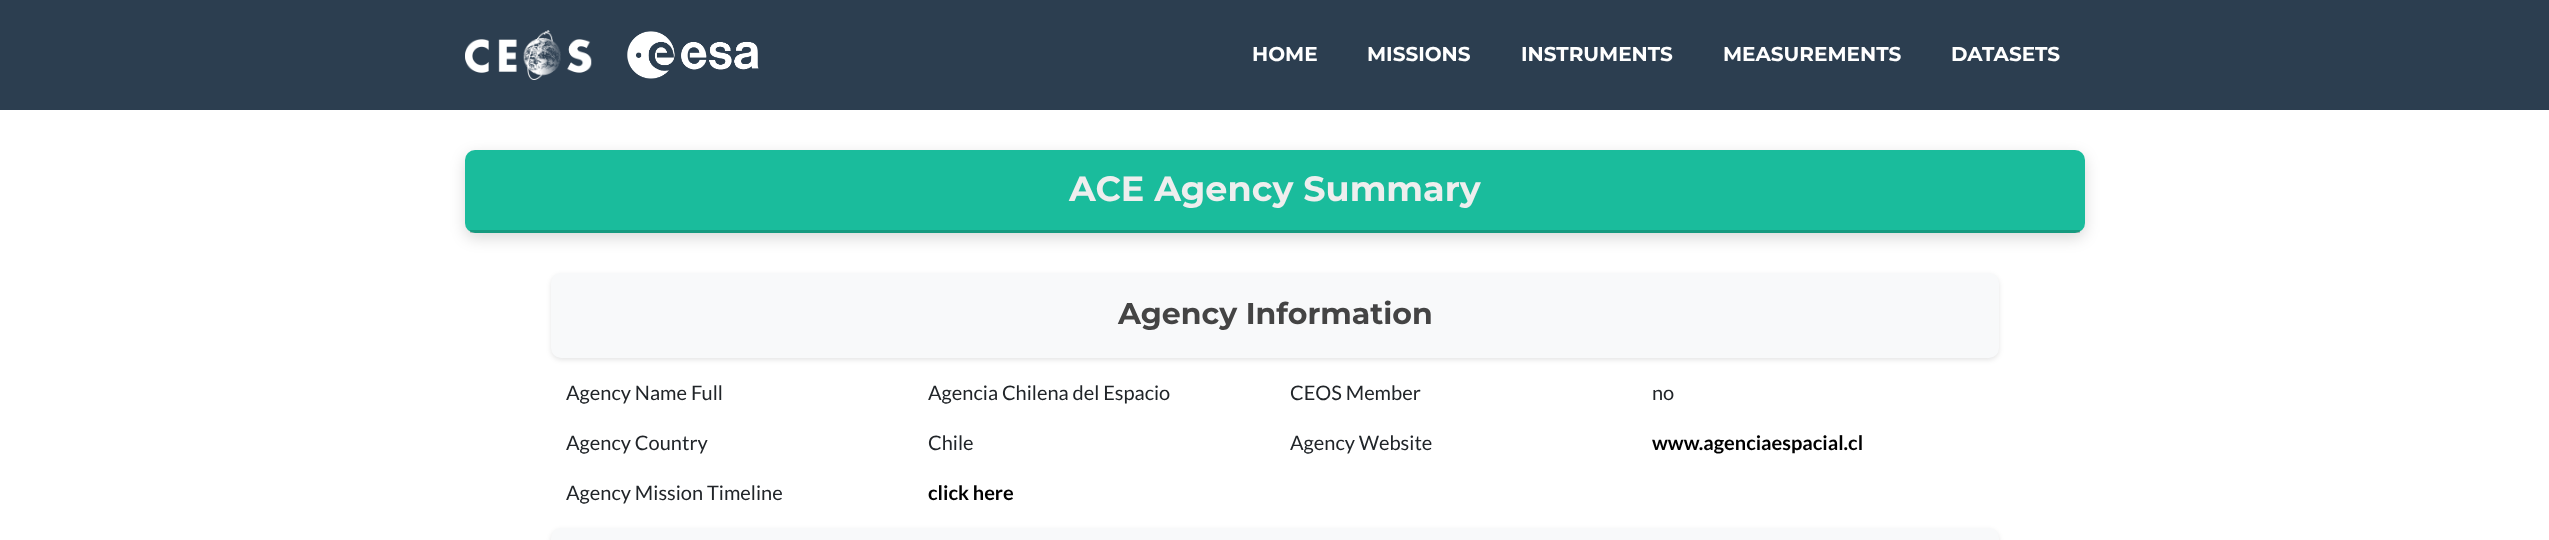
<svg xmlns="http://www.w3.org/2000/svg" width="2549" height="540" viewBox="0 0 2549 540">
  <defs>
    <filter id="blur1" x="-50%" y="-200%" width="200%" height="500%"><feGaussianBlur stdDeviation="7.5"/></filter>
    <filter id="blur2" x="-50%" y="-200%" width="200%" height="500%"><feGaussianBlur stdDeviation="2.5"/></filter>
  </defs>
  <rect width="100%" height="100%" fill="#ffffff"/>
  <rect x="0" y="0" width="2549" height="110" fill="#2c3e50"/>
  <image x="465" y="30" width="127" height="50" href="img1.png"/>
  <image x="627" y="31" width="132" height="48" href="img2.png"/>
  <text x="1252" y="61" font-family="Montserrat" font-size="20" font-weight="bold" fill="#ffffff">HOME</text>
  <text x="1367" y="61" font-family="Montserrat" font-size="20" font-weight="bold" fill="#ffffff">MISSIONS</text>
  <text x="1521" y="61" font-family="Montserrat" font-size="20" font-weight="bold" fill="#ffffff">INSTRUMENTS</text>
  <text x="1723" y="61" font-family="Montserrat" font-size="20" font-weight="bold" fill="#ffffff">MEASUREMENTS</text>
  <text x="1951" y="61" font-family="Montserrat" font-size="20" font-weight="bold" fill="#ffffff">DATASETS</text>
  <rect x="465" y="155" width="1620" height="83" rx="10" fill="#000000" fill-opacity="0.15" filter="url(#blur1)"/>
  <rect x="465" y="150" width="1620" height="83" rx="10" fill="#1abc9c"/>
  <rect x="470" y="230" width="1610" height="3" fill="#000000" fill-opacity="0.18"/>
  <text x="1069" y="201" font-family="Montserrat" font-size="35" font-weight="bold" fill="#eeeeee">ACE Agency Summary</text>
  <rect x="551" y="275" width="1448" height="85" rx="10" fill="#000000" fill-opacity="0.1" filter="url(#blur2)"/>
  <rect x="551" y="273" width="1448" height="85" rx="10" fill="#f8f9fa"/>
  <text x="1118" y="324" font-family="Montserrat" font-size="30" font-weight="bold" fill="#444444">Agency Information</text>
  <text x="566" y="400" font-family="Lato" font-size="20" fill="#212529">Agency Name Full</text>
  <text x="928" y="400" font-family="Lato" font-size="20" fill="#212529">Agencia Chilena del Espacio</text>
  <text x="1290" y="400" font-family="Lato" font-size="20" fill="#212529">CEOS Member</text>
  <text x="1652" y="400" font-family="Lato" font-size="20" fill="#212529">no</text>
  <text x="566" y="450" font-family="Lato" font-size="20" fill="#212529">Agency Country</text>
  <text x="928" y="450" font-family="Lato" font-size="20" fill="#212529">Chile</text>
  <text x="1290" y="450" font-family="Lato" font-size="20" fill="#212529">Agency Website</text>
  <text x="1652" y="450" font-family="Lato" font-size="20" font-weight="bold" fill="#000000">www.agenciaespacial.cl</text>
  <text x="566" y="500" font-family="Lato" font-size="20" fill="#212529">Agency Mission Timeline</text>
  <text x="928" y="500" font-family="Lato" font-size="20" font-weight="bold" fill="#000000">click here</text>
  <rect x="551" y="530" width="1448" height="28" rx="10" fill="#000000" fill-opacity="0.1" filter="url(#blur2)"/>
  <rect x="551" y="528" width="1448" height="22" rx="10" fill="#f8f9fa"/>
</svg>
